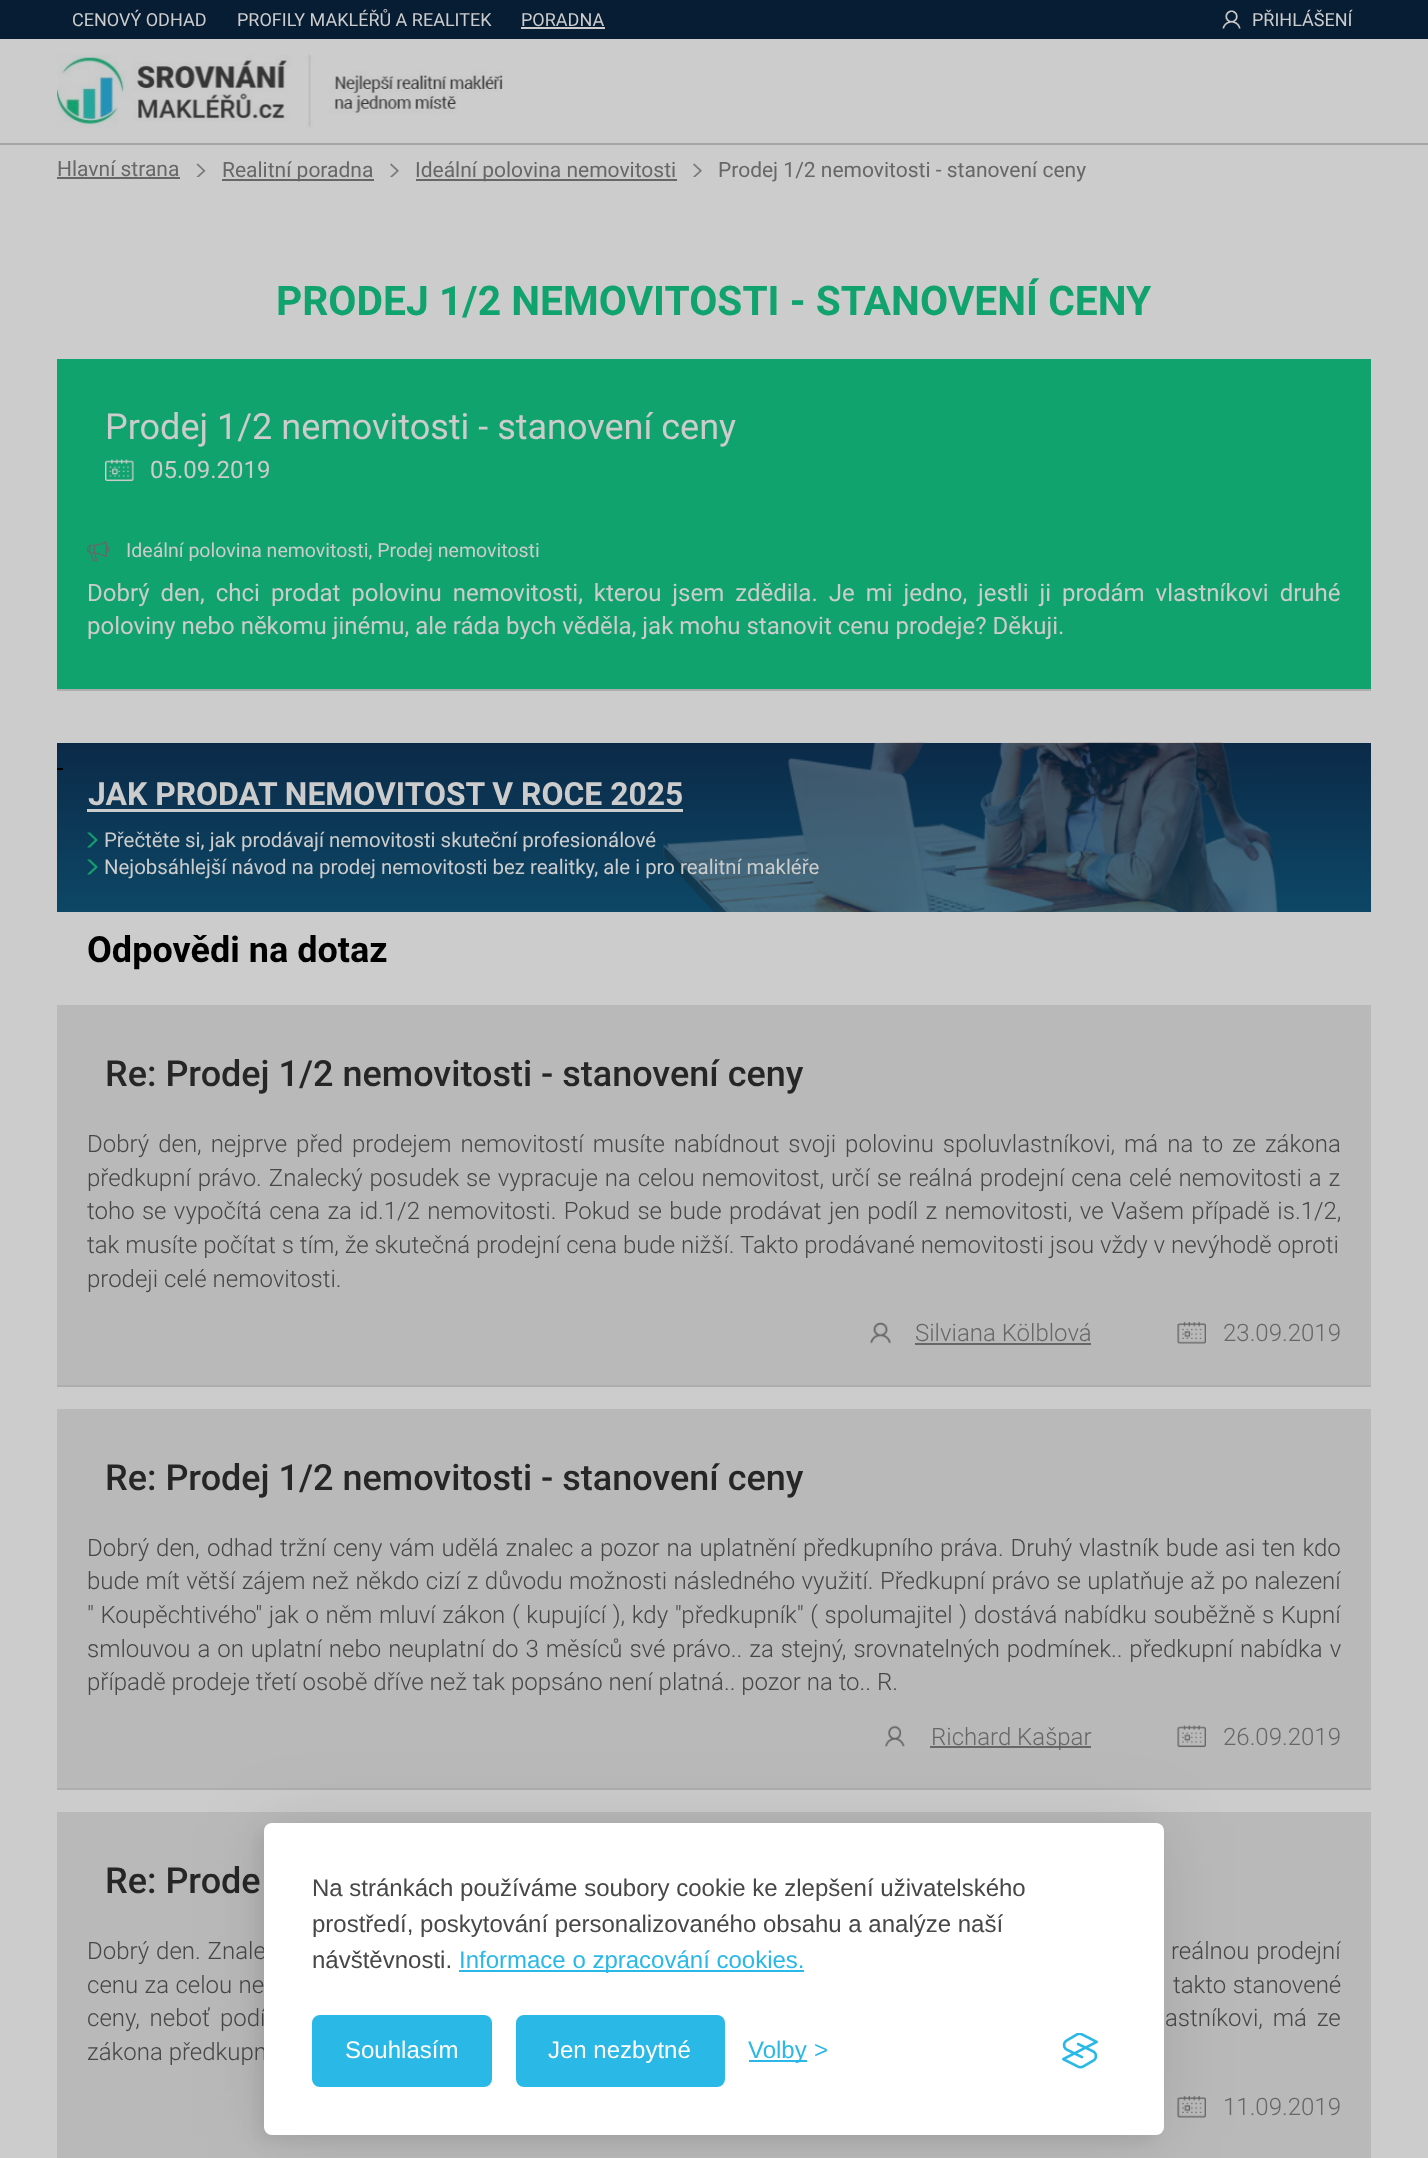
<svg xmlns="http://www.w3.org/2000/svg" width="1428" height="2158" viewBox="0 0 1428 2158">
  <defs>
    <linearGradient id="g1" gradientUnits="userSpaceOnUse" x1="714" y1="742" x2="714" y2="912"><stop offset="0" stop-color="#0b2a48"/><stop offset="1" stop-color="#0d4766"/></linearGradient>
    <filter id="blur1" x="-50%" y="-200%" width="200%" height="500%"><feGaussianBlur stdDeviation="37.5"/></filter>
    <filter id="blur2" x="-50%" y="-200%" width="200%" height="500%"><feGaussianBlur stdDeviation="7.5"/></filter>
  </defs>
  <rect width="100%" height="100%" fill="#cccccc"/>
  <rect x="0" y="0" width="1428" height="39" fill="#071d34"/>
  <text x="72" y="26" font-family="Roboto" font-size="18" fill="#cccccc">CENOVÝ ODHAD</text>
  <text x="237" y="26" font-family="Roboto" font-size="18" fill="#cccccc">PROFILY MAKLÉŘŮ A REALITEK</text>
  <text x="521" y="26" font-family="Roboto" font-size="18" fill="#cccccc">PORADNA</text>
  <rect x="521" y="27" width="84" height="2" fill="#cccccc"/>
  <image x="1222" y="10" width="19" height="19" href="img1.png"/>
  <text x="1252" y="26" font-family="Roboto" font-size="18" fill="#cccccc">PŘIHLÁŠENÍ</text>
  <rect x="0" y="143" width="1428" height="2" fill="#a5a5a5"/>
  <image x="57" y="54" width="446" height="74" href="img2.png"/>
  <text x="57" y="176" font-family="Roboto" font-size="21" fill="#676767">Hlavní strana</text>
  <rect x="57" y="177" width="123" height="2" fill="#676767"/>
  <image x="196" y="163" width="10" height="14" href="img3.png"/>
  <rect x="222" y="179" width="152" height="2" fill="#676767"/>
  <text x="222" y="177" font-family="Roboto" font-size="21" fill="#676767">Realitní poradna</text>
  <image x="390" y="163" width="9" height="14" href="img4.png"/>
  <rect x="416" y="179" width="261" height="2" fill="#676767"/>
  <text x="415" y="177" font-family="Roboto" font-size="21" fill="#676767">Ideální polovina nemovitosti</text>
  <image x="693" y="163" width="9" height="14" href="img4.png"/>
  <text x="718" y="177" font-family="Roboto" font-size="21" fill="#676767">Prodej 1/2 nemovitosti - stanovení ceny</text>
  <text x="276" y="315" font-family="Roboto" font-size="40.8" font-weight="bold" fill="#11a36e">PRODEJ 1/2 NEMOVITOSTI - STANOVENÍ CENY</text>
  <rect x="57" y="359" width="1314" height="330" fill="#11a36e"/>
  <rect x="57" y="689" width="1314" height="2" fill="#aeaeae"/>
  <text x="105" y="439" font-family="Roboto" font-size="36" fill="#cccccc">Prodej 1/2 nemovitosti - stanovení ceny</text>
  <image x="105" y="459" width="29" height="23" href="img5.png"/>
  <text x="150" y="478" font-family="Roboto" font-size="24" fill="#cccccc">05.09.2019</text>
  <image x="87" y="541" width="23" height="21" href="img6.png"/>
  <text x="126" y="557" font-family="Roboto" font-size="19.5" fill="#cccccc">Ideální polovina nemovitosti, Prodej nemovitosti</text>
  <text x="87" y="601" word-spacing="5" font-family="Roboto" font-size="24" fill="#cccccc">Dobrý den, chci prodat polovinu nemovitosti, kterou jsem zdědila. Je mi jedno, jestli ji prodám vlastníkovi druhé</text>
  <text x="87" y="634" font-family="Roboto" font-size="24" fill="#cccccc">poloviny nebo někomu jinému, ale ráda bych věděla, jak mohu stanovit cenu prodeje? Děkuji.</text>
  <rect x="57" y="743" width="1314" height="169" fill="url(#g1)"/>
  <rect x="57" y="768" width="6" height="2" fill="#000000"/>
  <image x="663" y="742" width="615" height="170" href="img7.png"/>
  <text x="88" y="805" font-family="Roboto" font-size="31.9" font-weight="bold" fill="#cccccc">JAK PRODAT NEMOVITOST V ROCE 2025</text>
  <rect x="87" y="809" width="596" height="3" fill="#cccccc"/>
  <image x="87" y="832" width="11" height="16" href="img8.png"/>
  <text x="104" y="847" font-family="Roboto" font-size="20.4" fill="#cccccc">Přečtěte si, jak prodávají nemovitosti skuteční profesionálové</text>
  <image x="87" y="859" width="11" height="16" href="img9.png"/>
  <text x="104" y="874" font-family="Roboto" font-size="20.4" fill="#cccccc">Nejobsáhlejší návod na prodej nemovitosti bez realitky, ale i pro realitní makléře</text>
  <text x="87" y="962" font-family="Roboto" font-size="36" font-weight="bold" fill="#000000">Odpovědi na dotaz</text>
  <rect x="57" y="1005" width="1314" height="380" fill="#b9b9b9"/>
  <rect x="57" y="1385" width="1314" height="2" fill="#aeaeae"/>
  <text x="105" y="1086" font-family="Roboto" font-size="36" font-weight="500" fill="#262626">Re: Prodej 1/2 nemovitosti - stanovení ceny</text>
  <text x="87" y="1152" word-spacing="3.1" font-family="Roboto" font-size="24" font-weight="300" fill="#474747">Dobrý den, nejprve před prodejem nemovitostí musíte nabídnout svoji polovinu spoluvlastníkovi, má na to ze zákona</text>
  <text x="87" y="1186" word-spacing="1.1" font-family="Roboto" font-size="24" font-weight="300" fill="#474747">předkupní právo. Znalecký posudek se vypracuje na celou nemovitost, určí se reálná prodejní cena celé nemovitosti a z</text>
  <text x="87" y="1219" word-spacing="1.5" font-family="Roboto" font-size="24" font-weight="300" fill="#474747">toho se vypočítá cena za id.1/2 nemovitosti. Pokud se bude prodávat jen podíl z nemovitosti, ve Vašem případě is.1/2,</text>
  <text x="87" y="1253" font-family="Roboto" font-size="24" font-weight="300" fill="#474747">tak musíte počítat s tím, že skutečná prodejní cena bude nižší. Takto prodávané nemovitosti jsou vždy v nevýhodě oproti</text>
  <text x="87" y="1287" font-family="Roboto" font-size="24" font-weight="300" fill="#474747">prodeji celé nemovitosti.</text>
  <image x="870" y="1322" width="21" height="22" href="img10.png"/>
  <text x="915" y="1341" font-family="Roboto" font-size="24" font-weight="300" fill="#676767">Silviana Kölblová</text>
  <rect x="915" y="1343" width="176" height="2" fill="#676767"/>
  <image x="1177" y="1322" width="29" height="22" href="img11.png"/>
  <text x="1223" y="1341" font-family="Roboto" font-size="24" font-weight="300" fill="#676767">23.09.2019</text>
  <rect x="57" y="1409" width="1314" height="379" fill="#b9b9b9"/>
  <rect x="57" y="1788" width="1314" height="2" fill="#aeaeae"/>
  <text x="105" y="1490" font-family="Roboto" font-size="36" font-weight="500" fill="#262626">Re: Prodej 1/2 nemovitosti - stanovení ceny</text>
  <text x="87" y="1556" word-spacing="1" font-family="Roboto" font-size="24" font-weight="300" fill="#474747">Dobrý den,</text>
  <text x="207" y="1556" word-spacing="1" font-family="Roboto" font-size="24" font-weight="300" fill="#474747">odhad tržní ceny vám udělá znalec a pozor na uplatnění předkupního práva. Druhý vlastník bude asi ten kdo</text>
  <text x="87" y="1589" word-spacing="0.5" font-family="Roboto" font-size="24" font-weight="300" fill="#474747">bude mít větší zájem než někdo cizí z důvodu možnosti následného využití. Předkupní právo se uplatňuje až po nalezení</text>
  <text x="87" y="1623" word-spacing="0.75" font-family="Roboto" font-size="24" font-weight="300" fill="#474747">" Koupěchtivého" jak o něm mluví zákon ( kupující ), kdy "předkupník" ( spolumajitel ) dostává nabídku souběžně s Kupní</text>
  <text x="87" y="1657" word-spacing="1.1" font-family="Roboto" font-size="24" font-weight="300" fill="#474747">smlouvou a on uplatní nebo neuplatní do 3 měsíců své právo.. za stejný, srovnatelných podmínek.. předkupní nabídka v</text>
  <text x="87" y="1690" font-family="Roboto" font-size="24" font-weight="300" fill="#474747">případě prodeje třetí osobě dříve než tak popsáno není platná.. pozor na to.. R.</text>
  <image x="885" y="1725" width="20" height="22" href="img12.png"/>
  <rect x="930" y="1746" width="161" height="2" fill="#676767"/>
  <text x="931" y="1745" font-family="Roboto" font-size="24" font-weight="300" fill="#676767">Richard Kašpar</text>
  <image x="1177" y="1725" width="29" height="23" href="img13.png"/>
  <text x="1223" y="1745" font-family="Roboto" font-size="24" font-weight="300" fill="#676767">26.09.2019</text>
  <rect x="57" y="1812" width="1314" height="346" fill="#b9b9b9"/>
  <text x="105" y="1893" font-family="Roboto" font-size="36" font-weight="500" fill="#262626">Re: Prode</text>
  <text x="87" y="1959" word-spacing="1" font-family="Roboto" font-size="24" font-weight="300" fill="#474747">Dobrý den. Znale</text>
  <text x="1171" y="1959" word-spacing="1" font-family="Roboto" font-size="24" font-weight="300" fill="#474747">reálnou prodejní</text>
  <text x="87" y="1993" word-spacing="0.5" font-family="Roboto" font-size="24" font-weight="300" fill="#474747">cenu za celou ne</text>
  <text x="1173" y="1993" word-spacing="0.5" font-family="Roboto" font-size="24" font-weight="300" fill="#474747">takto stanovené</text>
  <text x="87" y="2026" word-spacing="4" font-family="Roboto" font-size="24" font-weight="300" fill="#474747">ceny, neboť podí</text>
  <text x="1165" y="2026" word-spacing="4" font-family="Roboto" font-size="24" font-weight="300" fill="#474747">astníkovi, má ze</text>
  <text x="87" y="2060" font-family="Roboto" font-size="24" font-weight="300" fill="#474747">zákona předkupn</text>
  <image x="1177" y="2096" width="29" height="22" href="img11.png"/>
  <text x="1223" y="2115" font-family="Roboto" font-size="24" font-weight="300" fill="#676767">11.09.2019</text>
  <rect x="264" y="1823" width="900" height="312" rx="8" fill="#000000" fill-opacity="0.1" filter="url(#blur1)"/>
  <rect x="257" y="1830" width="900" height="312" rx="8" fill="#000000" fill-opacity="0.07" filter="url(#blur2)"/>
  <rect x="264" y="1823" width="900" height="312" rx="8" fill="#ffffff"/>
  <text x="312" y="1896" font-family="Liberation Sans" font-size="24" fill="#474747">Na stránkách používáme soubory cookie ke zlepšení uživatelského</text>
  <text x="312" y="1932" font-family="Liberation Sans" font-size="24" fill="#474747">prostředí, poskytování personalizovaného obsahu a analýze naší</text>
  <text x="312" y="1968" font-family="Liberation Sans" font-size="24" fill="#474747">návštěvnosti.</text>
  <rect x="459" y="1970" width="345" height="2" fill="#2ab8e6"/>
  <text x="459" y="1968" font-family="Liberation Sans" font-size="24" fill="#2ab8e6">Informace o zpracování cookies.</text>
  <rect x="313.5" y="2016.5" width="177" height="69" rx="6.5" fill="#2ab8e6" stroke="#2ab8e6" stroke-width="3"/>
  <text x="345" y="2058" font-family="Liberation Sans" font-size="24" fill="#ffffff">Souhlasím</text>
  <rect x="517.5" y="2016.5" width="206" height="69" rx="6.5" fill="#2ab8e6" stroke="#2ab8e6" stroke-width="3"/>
  <text x="548" y="2058" font-family="Liberation Sans" font-size="24" fill="#ffffff">Jen nezbytné</text>
  <rect x="749" y="2060" width="58" height="2" fill="#2ab8e6"/>
  <text x="748" y="2058" font-family="Liberation Sans" font-size="24" fill="#2ab8e6">Volby</text>
  <text x="814" y="2058" font-family="Liberation Sans" font-size="24" fill="#2ab8e6">&gt;</text>
  <image x="1062" y="2033" width="36" height="36" href="img14.png"/>
</svg>
